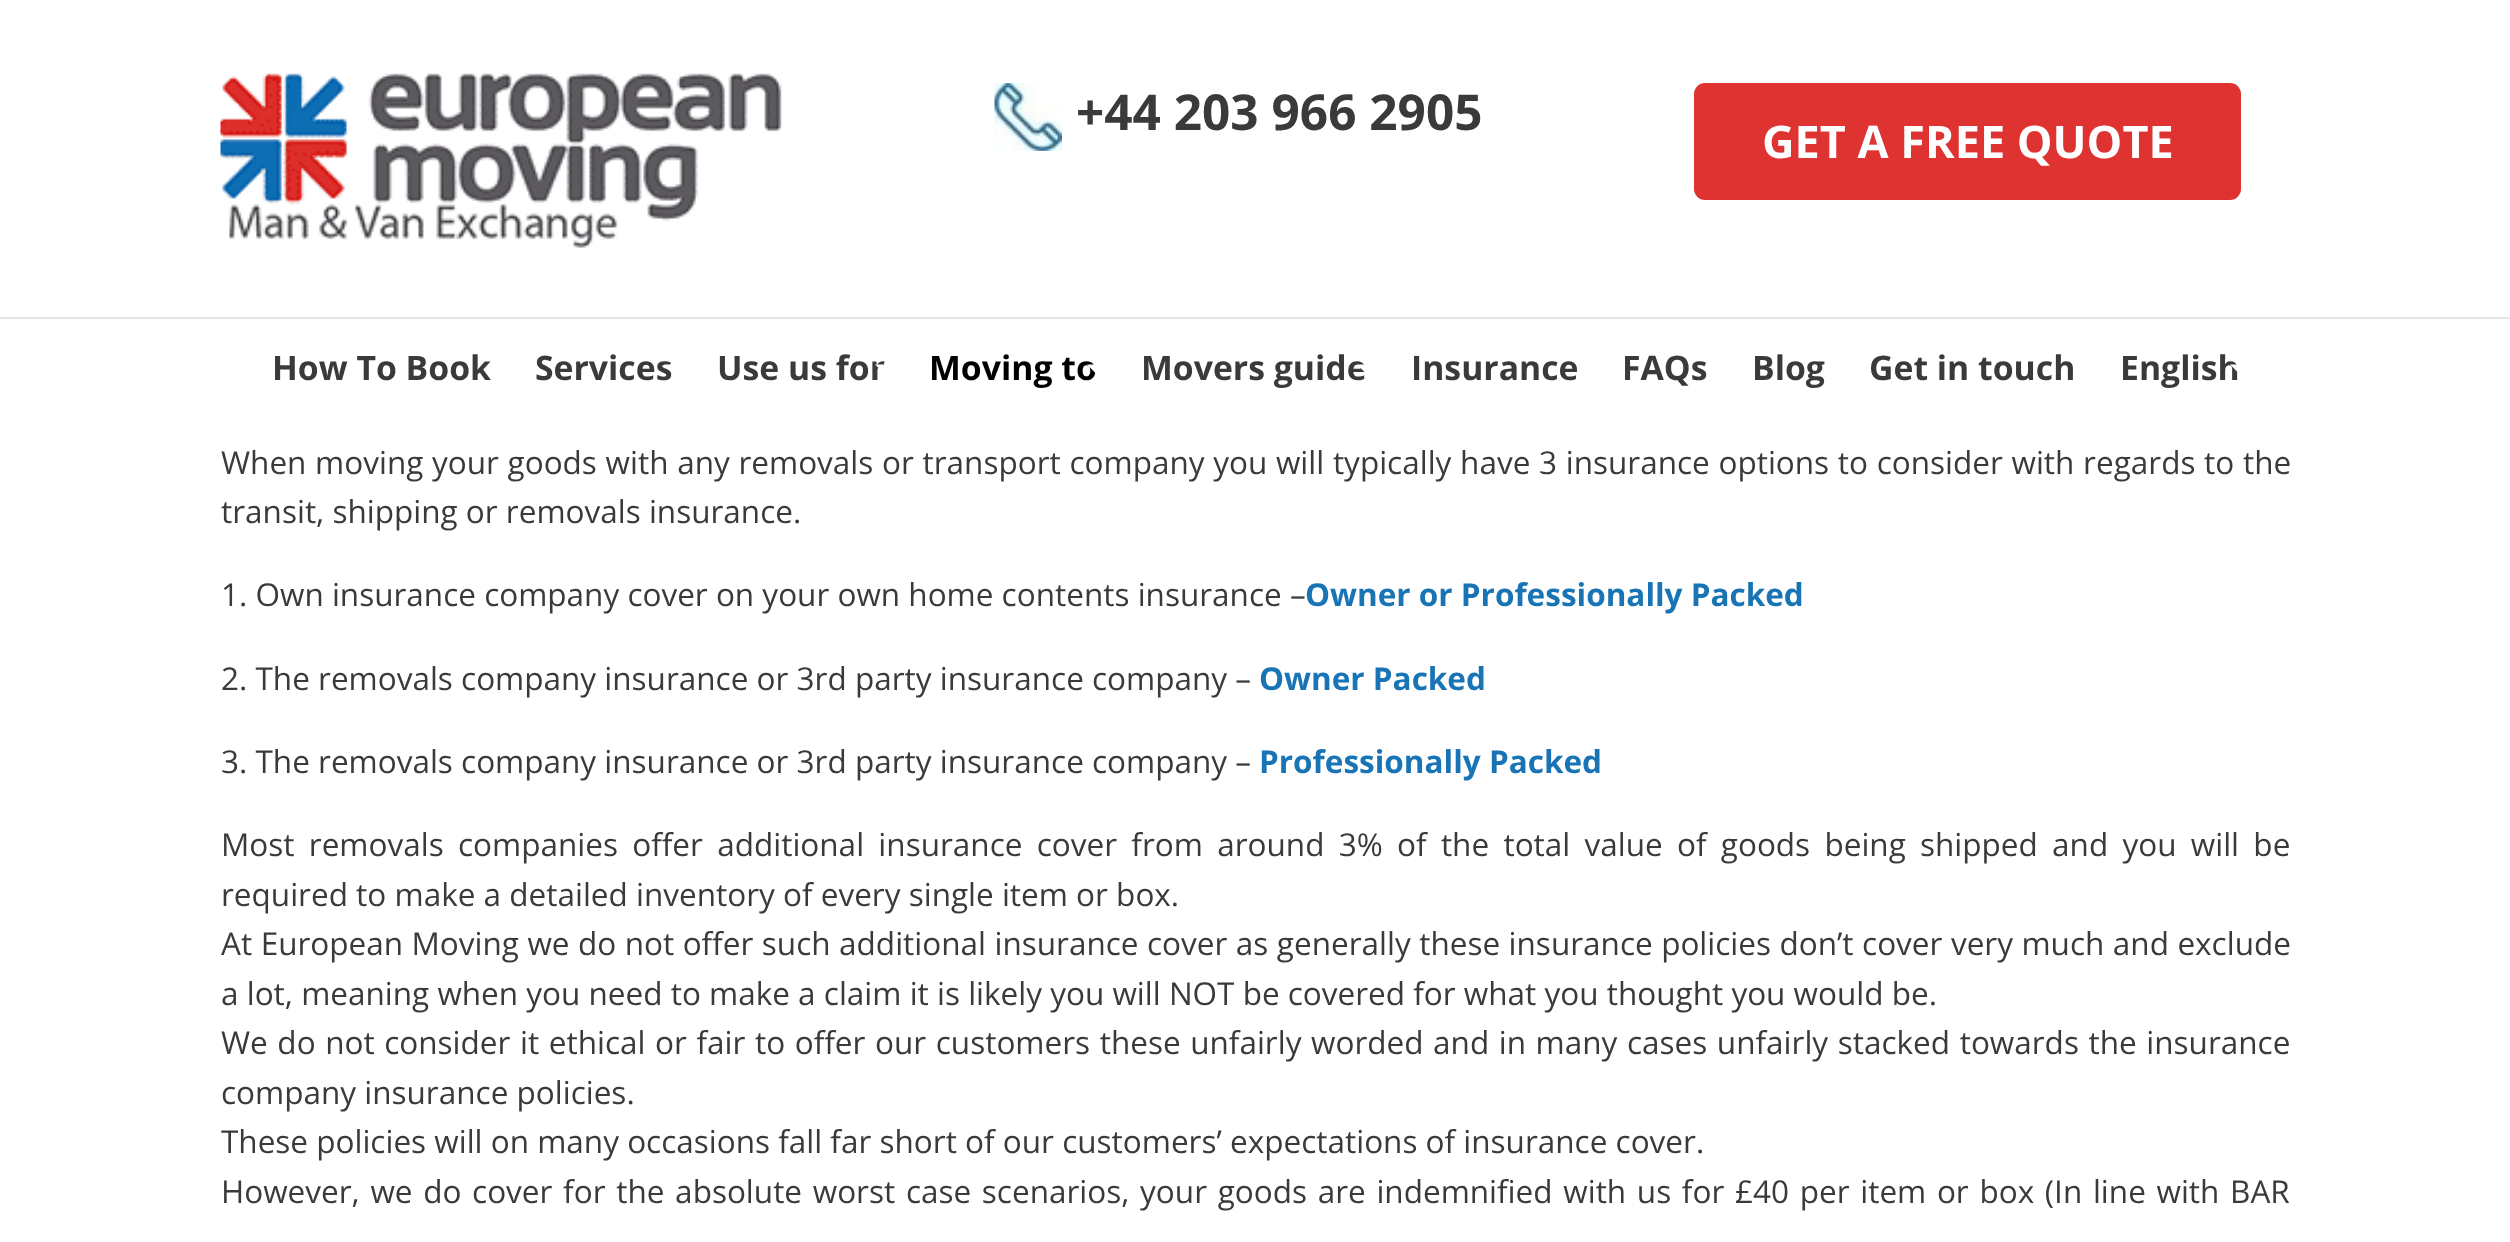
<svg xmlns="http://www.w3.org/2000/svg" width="2510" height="1242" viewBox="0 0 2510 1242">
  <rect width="100%" height="100%" fill="#ffffff"/>
  <image x="220" y="73" width="562" height="175" href="img1.png"/>
  <image x="994" y="83" width="68" height="68" href="img2.png"/>
  <text x="1076" y="130" font-family="Open Sans" font-size="49.5" font-weight="bold" fill="#3a3a3a">+44 203 966 2905</text>
  <rect x="1694" y="83" width="547" height="117" rx="11" fill="#df3332"/>
  <text x="1762" y="158" font-family="Open Sans" font-size="45" font-weight="bold" fill="#ffffff">GET A FREE QUOTE</text>
  <rect x="0" y="317" width="2510" height="2" fill="#e5e5e5"/>
  <text x="272" y="380" font-family="Open Sans" font-size="33.75" font-weight="bold" fill="#3a3a3a">How To Book</text>
  <text x="535" y="380" font-family="Open Sans" font-size="33.75" font-weight="bold" fill="#3a3a3a">Services</text>
  <path d="M664 364.5H682L673 373.5Z" fill="#ffffff"/>
  <text x="717" y="380" font-family="Open Sans" font-size="33.75" font-weight="bold" fill="#3a3a3a">Use us for</text>
  <path d="M875 364.5H893L884 373.5Z" fill="#ffffff"/>
  <text x="929" y="380" font-family="Open Sans" font-size="33.75" font-weight="bold" fill="#000000">Moving to</text>
  <path d="M1087 364.5H1105L1096 373.5Z" fill="#ffffff"/>
  <text x="1141" y="380" font-family="Open Sans" font-size="33.75" font-weight="bold" fill="#3a3a3a">Movers guide</text>
  <path d="M1357 364.5H1375L1366 373.5Z" fill="#ffffff"/>
  <text x="1411" y="380" font-family="Open Sans" font-size="33.75" font-weight="bold" fill="#3a3a3a">Insurance</text>
  <text x="1622" y="380" font-family="Open Sans" font-size="33.75" font-weight="bold" fill="#3a3a3a">FAQs</text>
  <text x="1752" y="380" font-family="Open Sans" font-size="33.75" font-weight="bold" fill="#3a3a3a">Blog</text>
  <text x="1869" y="380" font-family="Open Sans" font-size="33.75" font-weight="bold" fill="#3a3a3a">Get in touch</text>
  <text x="2120" y="380" font-family="Open Sans" font-size="33.75" font-weight="bold" fill="#3a3a3a">English</text>
  <path d="M2230 364.5H2248L2239 373.5Z" fill="#ffffff"/>
  <text x="221" y="474" word-spacing="0.5" font-family="Open Sans" font-size="31.5" fill="#3a3a3a">When moving your goods with any removals or transport company you will typically have 3 insurance options to consider with regards to the</text>
  <text x="221" y="523" font-family="Open Sans" font-size="31.5" fill="#3a3a3a">transit, shipping or removals insurance.</text>
  <text x="221" y="606" font-family="Open Sans" font-size="31.5" fill="#3a3a3a">1. Own insurance company cover on your own home contents insurance –</text>
  <text x="1305" y="606" font-family="Open Sans" font-size="31.5" font-weight="bold" fill="#1874b5">Owner or Professionally Packed</text>
  <text x="221" y="690" font-family="Open Sans" font-size="31.5" fill="#3a3a3a">2. The removals company insurance or 3rd party insurance company –</text>
  <text x="1259" y="690" font-family="Open Sans" font-size="31.5" font-weight="bold" fill="#1874b5">Owner Packed</text>
  <text x="221" y="773" font-family="Open Sans" font-size="31.5" fill="#3a3a3a">3. The removals company insurance or 3rd party insurance company –</text>
  <text x="1259" y="773" font-family="Open Sans" font-size="31.5" font-weight="bold" fill="#1874b5">Professionally Packed</text>
  <text x="221" y="856" word-spacing="6.1" font-family="Open Sans" font-size="31.5" fill="#3a3a3a">Most removals companies offer additional insurance cover from around 3% of the total value of goods being shipped and you will be</text>
  <text x="221" y="906" font-family="Open Sans" font-size="31.5" fill="#3a3a3a">required to make a detailed inventory of every single item or box.</text>
  <text x="221" y="955" word-spacing="0.3" font-family="Open Sans" font-size="31.5" fill="#3a3a3a">At European Moving we do not offer such additional insurance cover as generally these insurance policies don’t cover very much and exclude</text>
  <text x="221" y="1005" font-family="Open Sans" font-size="31.5" fill="#3a3a3a">a lot, meaning when you need to make a claim it is likely you will NOT be covered for what you thought you would be.</text>
  <text x="221" y="1054" word-spacing="1.4" font-family="Open Sans" font-size="31.5" fill="#3a3a3a">We do not consider it ethical or fair to offer our customers these unfairly worded and in many cases unfairly stacked towards the insurance</text>
  <text x="221" y="1104" font-family="Open Sans" font-size="31.5" fill="#3a3a3a">company insurance policies.</text>
  <text x="221" y="1153" font-family="Open Sans" font-size="31.5" fill="#3a3a3a">These policies will on many occasions fall far short of our customers’ expectations of insurance cover.</text>
  <text x="221" y="1203" word-spacing="2.5" font-family="Open Sans" font-size="31.5" fill="#3a3a3a">However, we do cover for the absolute worst case scenarios, your goods are indemnified with us for £40 per item or box (In line with BAR</text>
</svg>
